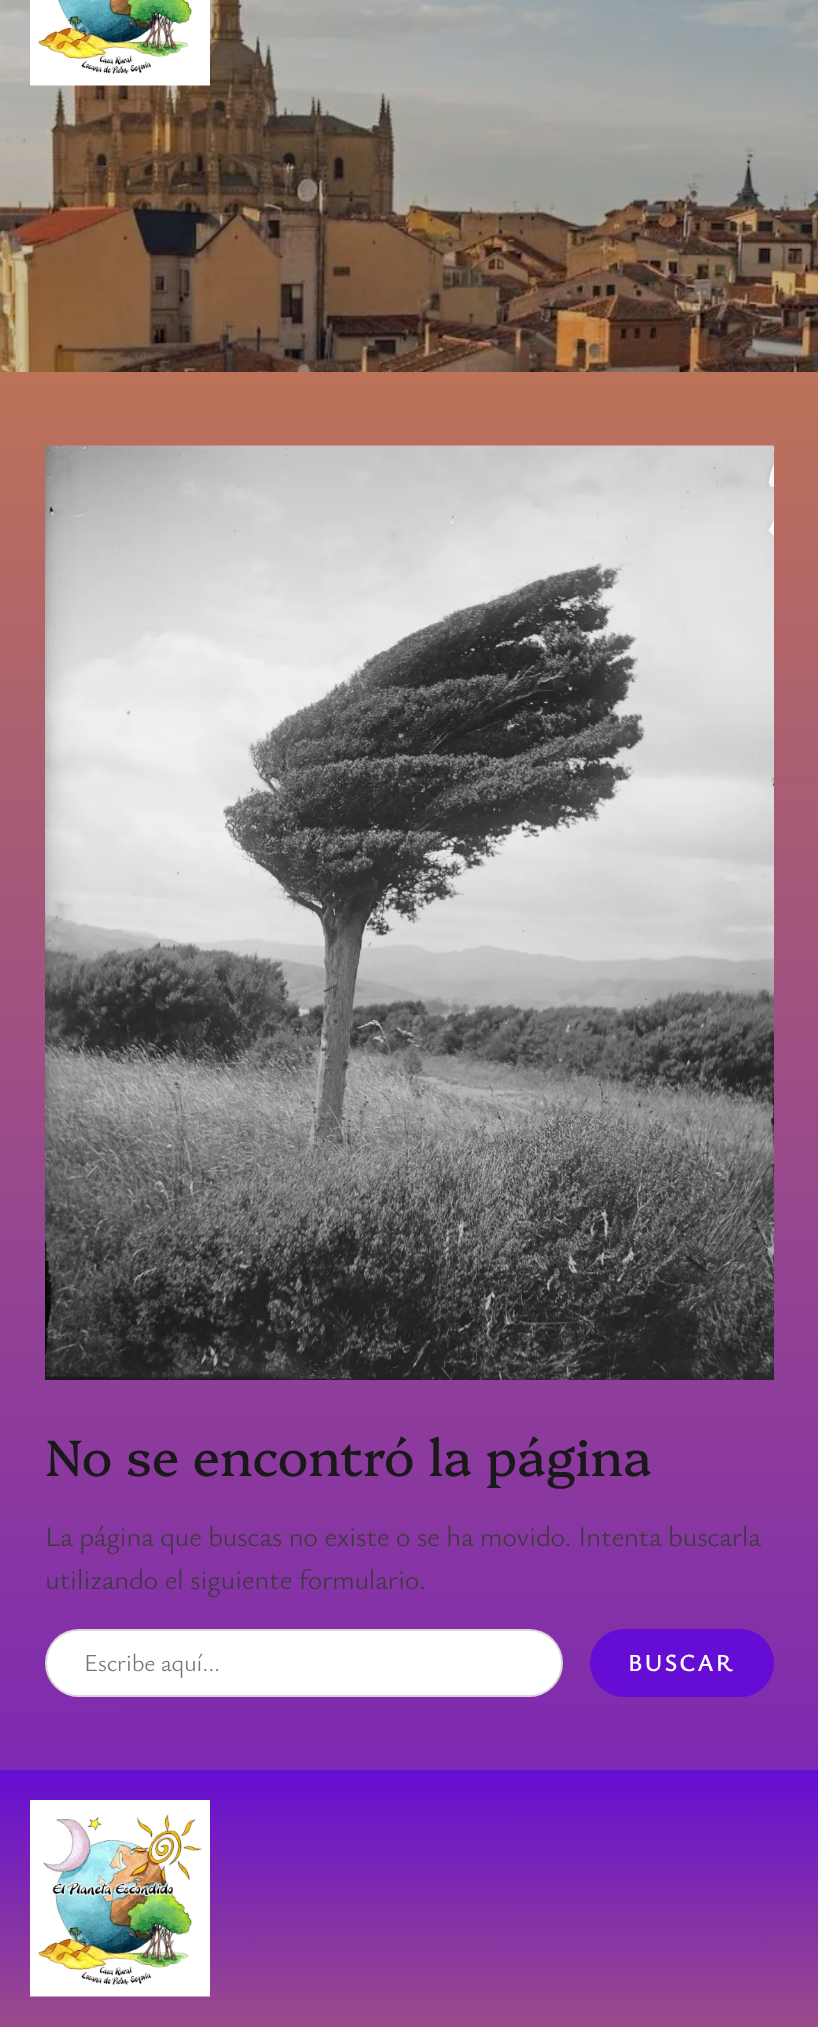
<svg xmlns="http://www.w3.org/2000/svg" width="818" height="2027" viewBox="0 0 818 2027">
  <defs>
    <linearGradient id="g1" gradientUnits="userSpaceOnUse" x1="409" y1="-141" x2="410" y2="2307"><stop offset="0" stop-color="#d48e37"/><stop offset="1" stop-color="#650dd4"/></linearGradient>
    <linearGradient id="g2" gradientUnits="userSpaceOnUse" x1="410" y1="1770" x2="410" y2="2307"><stop offset="0" stop-color="#650dd4"/><stop offset="1" stop-color="#d48e37"/></linearGradient>
  </defs>
  <rect width="100%" height="100%" fill="#ffffff"/>
  <rect x="0" y="372" width="818" height="1398" fill="url(#g1)"/>
  <image x="0" y="0" width="818" height="372" href="img1.png"/>
  <image x="30" y="0" width="180" height="86" href="img2.png"/>
  <image x="45" y="445" width="729" height="935" href="img3.png"/>
  <text x="45" y="1476" font-family="Platypi" font-size="51.25" letter-spacing="-0.15" fill="#191919">No se encontró la página</text>
  <text x="45" y="1546" font-family="Ysabeau Office" font-size="28.3" font-weight="300" letter-spacing="-0.33" fill="#3b3b3b">La página que buscas no existe o se ha movido. Intenta buscarla</text>
  <text x="45" y="1589" font-family="Ysabeau Office" font-size="28.3" font-weight="300" letter-spacing="-0.33" fill="#3b3b3b">utilizando el siguiente formulario.</text>
  <rect x="45" y="1629" width="518" height="68" rx="34" fill="#ffffff"/>
  <rect x="46" y="1630" width="516" height="66" rx="33" fill="none" stroke="#3b3b3b" stroke-opacity="0.2" stroke-width="2"/>
  <text x="84" y="1671" font-family="Ysabeau Office" font-size="24.5" font-weight="300" letter-spacing="-0.33" fill="#757575">Escribe aquí...</text>
  <rect x="590" y="1629" width="184" height="68" rx="34" fill="#650dd4"/>
  <text x="628" y="1671" font-family="Ysabeau Office" font-size="24.5" font-weight="600" letter-spacing="2" fill="#ffffff">BUSCAR</text>
  <rect x="0" y="1770" width="818" height="257" fill="url(#g2)"/>
  <image x="30" y="1800" width="180" height="197" href="img4.png"/>
</svg>
